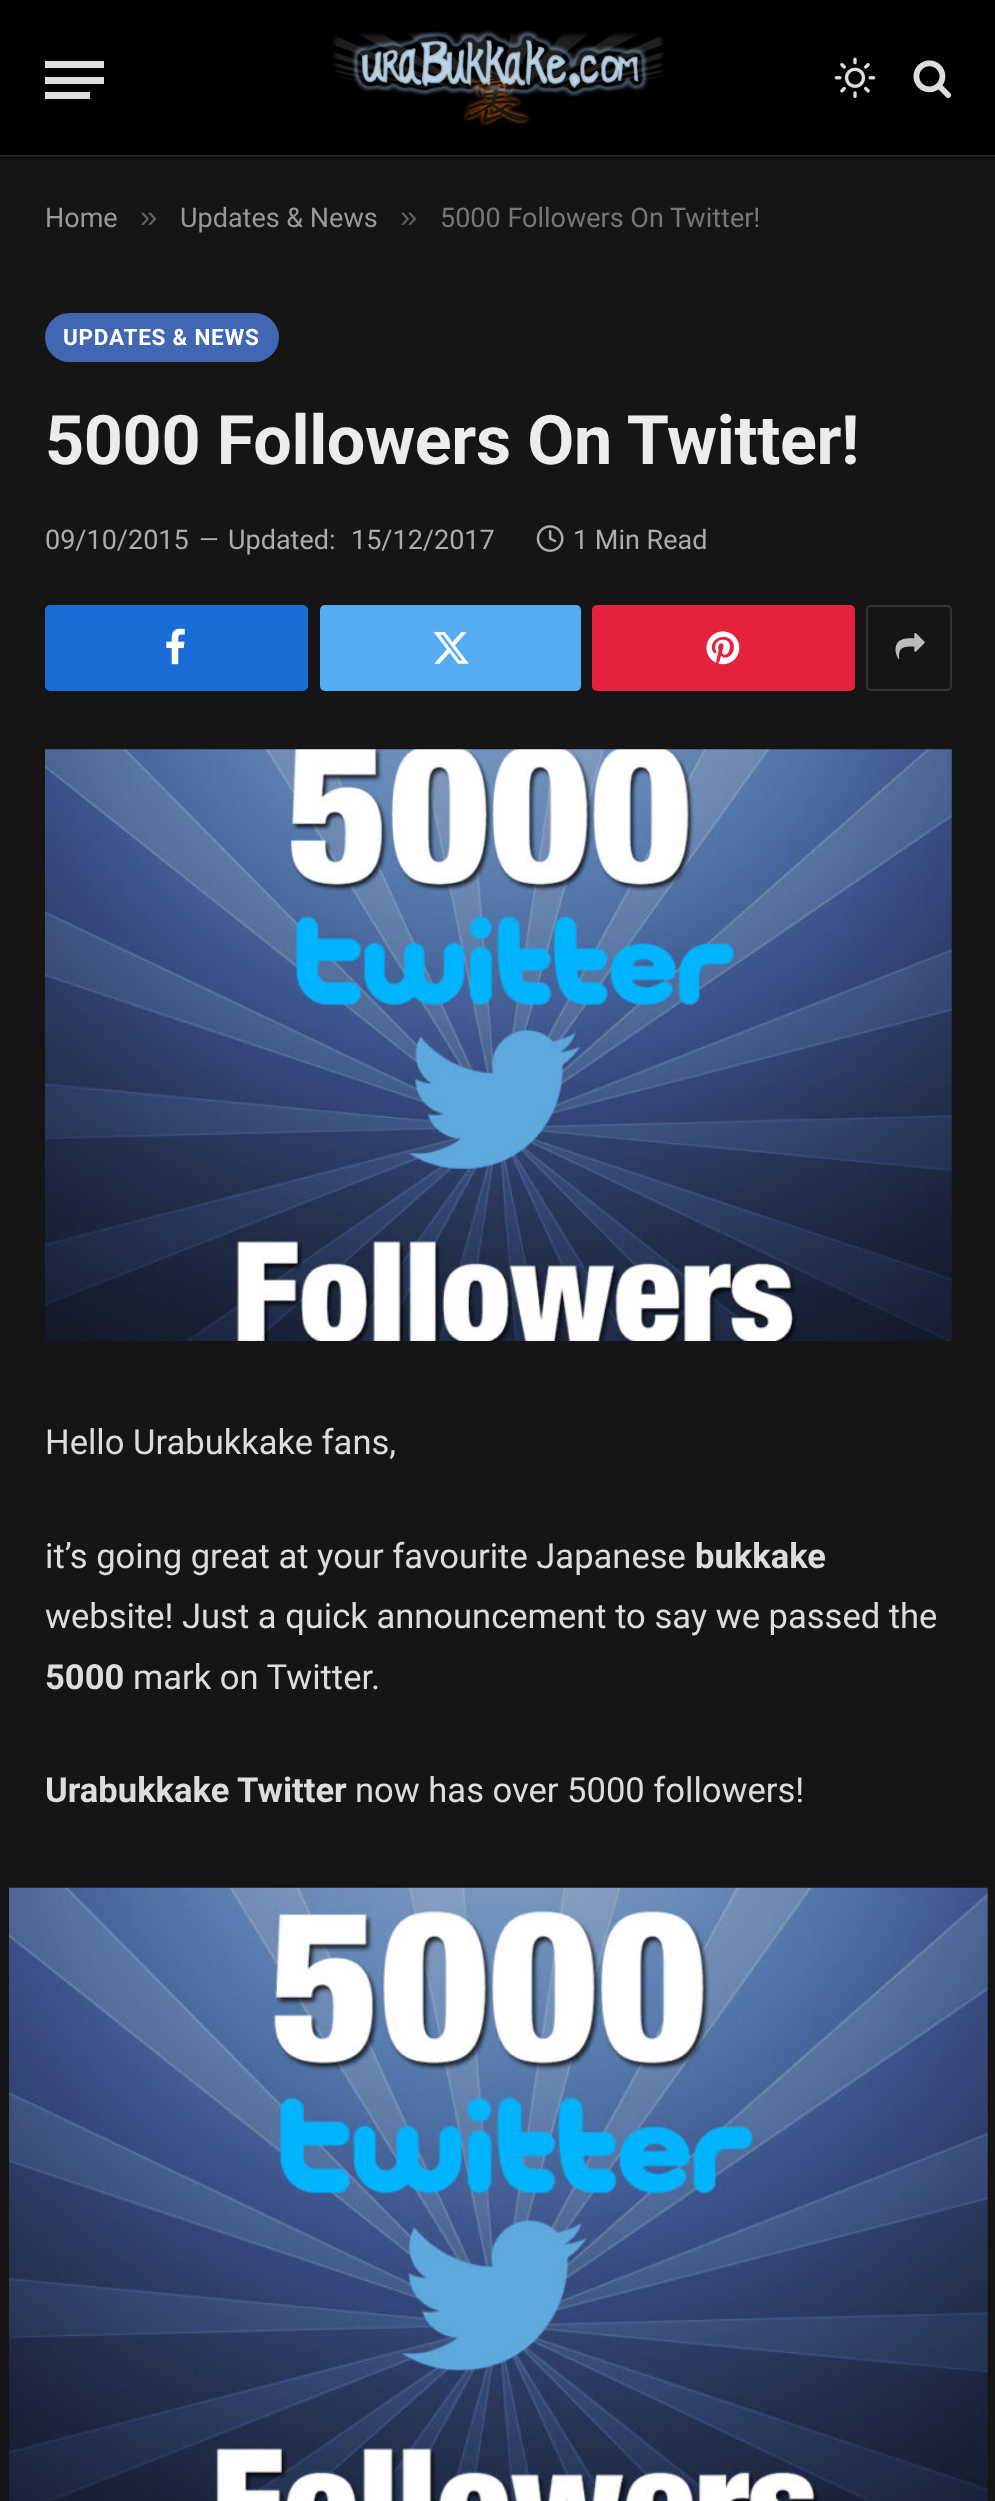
<svg xmlns="http://www.w3.org/2000/svg" width="995" height="2501" viewBox="0 0 995 2501">
  <rect width="100%" height="100%" fill="#151516"/>
  <rect x="0" y="0" width="995" height="158" fill="#000000"/>
  <rect x="0" y="155" width="995" height="2" fill="#222222"/>
  <rect x="45" y="92" width="45" height="7" fill="#dddddd"/>
  <rect x="45" y="61" width="59" height="7" fill="#dddddd"/>
  <rect x="45" y="77" width="59" height="7" fill="#dddddd"/>
  <image x="332" y="30" width="332" height="96" href="img1.png"/>
  <image x="834" y="57" width="42" height="41" href="img2.png"/>
  <image x="913" y="60" width="39" height="38" href="img3.png"/>
  <text x="45" y="227" font-family="Roboto" font-size="27" fill="#999999">Home</text>
  <text x="140" y="227" font-family="Liberation Sans" font-size="31" fill="#636364">»</text>
  <text x="180" y="227" font-family="Roboto" font-size="27" fill="#999999">Updates &amp; News</text>
  <text x="400" y="227" font-family="Liberation Sans" font-size="31" fill="#636364">»</text>
  <text x="440" y="227" font-family="Roboto" font-size="27" fill="#777777">5000 Followers On Twitter!</text>
  <rect x="45" y="313" width="234" height="49" rx="24.5" fill="#4267b2"/>
  <text x="63" y="345" font-family="Roboto" font-size="22.5" font-weight="bold" letter-spacing="0.75" fill="#ffffff">UPDATES &amp; NEWS</text>
  <text x="45" y="464" font-family="Roboto" font-size="68.25" font-weight="bold" letter-spacing="-0.35" fill="#ececec">5000 Followers On Twitter!</text>
  <text x="45" y="549" font-family="Roboto" font-size="27" fill="#adadad">09/10/2015</text>
  <text x="199" y="548" font-family="Roboto" font-size="25" fill="#adadad">—</text>
  <text x="228" y="549" font-family="Roboto" font-size="27" fill="#adadad">Updated:</text>
  <text x="351" y="549" font-family="Roboto" font-size="27" fill="#adadad">15/12/2017</text>
  <image x="536" y="525" width="28" height="27" href="img4.png"/>
  <text x="573" y="549" font-family="Roboto" font-size="27" fill="#adadad">1 Min Read</text>
  <rect x="45" y="605" width="263" height="86" rx="5" fill="#1a6dd4"/>
  <image x="166" y="628" width="19" height="37" href="img5.png"/>
  <rect x="320" y="605" width="261" height="86" rx="5" fill="#55acef"/>
  <image x="433" y="631" width="36" height="33" href="img6.png"/>
  <rect x="592" y="605" width="263" height="86" rx="5" fill="#e4223e"/>
  <image x="706" y="631" width="34" height="34" href="img7.png"/>
  <rect x="867" y="606" width="84" height="84" rx="4" fill="none" stroke="#333333" stroke-width="2"/>
  <image x="895" y="633" width="30" height="26" href="img8.png"/>
  <image x="45" y="749" width="907" height="592" href="img9.png"/>
  <text x="45" y="1454" font-family="Roboto" font-size="34.55" fill="#dddddd">Hello Urabukkake fans,</text>
  <text x="45" y="1568" font-family="Roboto" font-size="34.55" fill="#dddddd">it’s going great at your favourite Japanese</text>
  <text x="695" y="1568" font-family="Roboto" font-size="34.55" font-weight="bold" fill="#dddddd">bukkake</text>
  <text x="45" y="1628" font-family="Roboto" font-size="34.55" fill="#dddddd">website! Just a quick announcement to say we passed the</text>
  <text x="45" y="1689" font-family="Roboto" font-size="34.55" font-weight="bold" fill="#dddddd">5000</text>
  <text x="133" y="1689" font-family="Roboto" font-size="34.55" fill="#dddddd">mark on Twitter.</text>
  <text x="45" y="1802" font-family="Roboto" font-size="34.55" font-weight="bold" fill="#dddddd">Urabukkake Twitter</text>
  <text x="355" y="1802" font-family="Roboto" font-size="34.55" fill="#dddddd">now has over 5000 followers!</text>
  <image x="9" y="1887" width="979" height="614" href="img10.png"/>
</svg>
